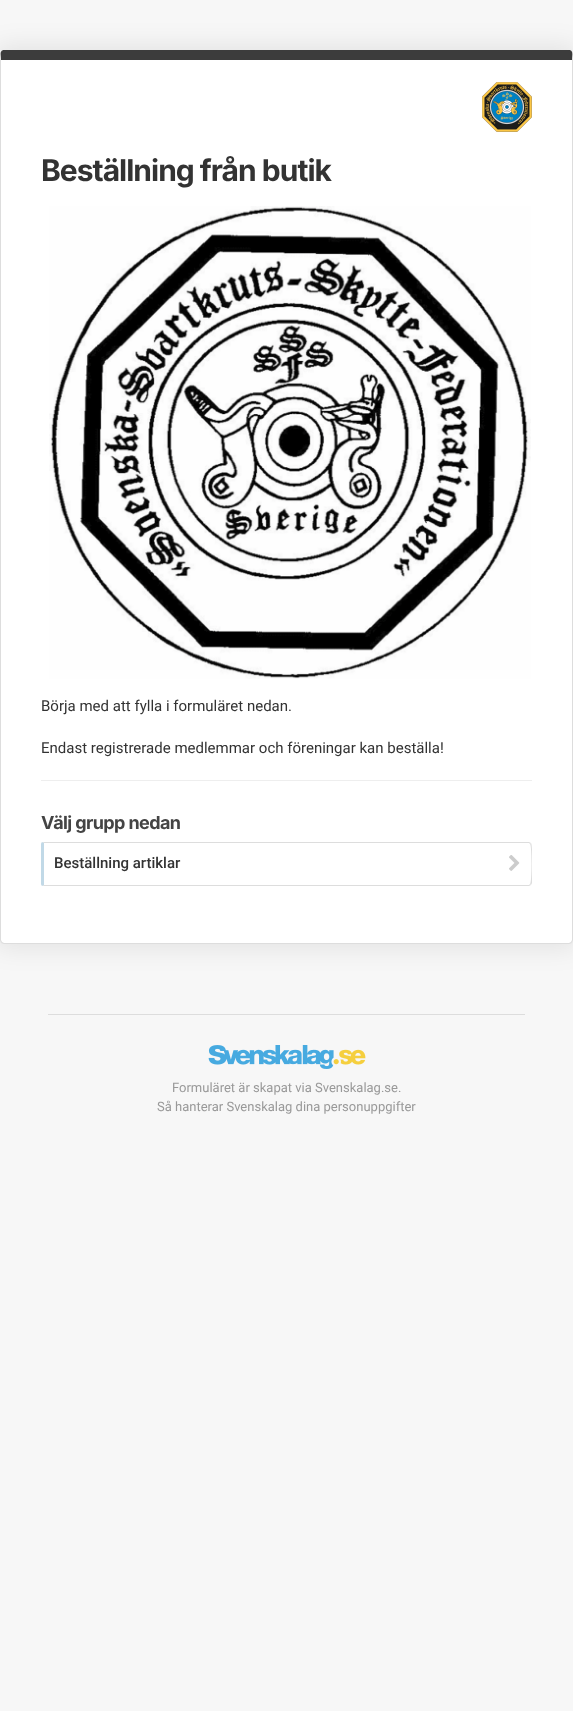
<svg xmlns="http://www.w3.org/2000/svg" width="573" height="1711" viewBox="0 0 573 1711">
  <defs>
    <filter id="blur1" x="-50%" y="-200%" width="200%" height="500%"><feGaussianBlur stdDeviation="12.5"/></filter>
    <clipPath id="clip1"><rect x="41" y="80" width="491" height="818"/></clipPath>
  </defs>
  <rect width="100%" height="100%" fill="#f7f7f7"/>
  <rect x="-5" y="45" width="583" height="904" rx="9" fill="#000000" fill-opacity="0.08" filter="url(#blur1)"/>
  <path d="M4 60H572V940C572 942 571 943 569 943H4C2 943 1 942 1 940V60Z" fill="#ffffff"/>
  <path d="M4 50C-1 50 1 57 1 60H572C572 57 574 50 569 50Z" fill="#3c3c3c"/>
  <path d="M573 940V53L572 60V940L571 942L572 943Z" fill="#dddddd"/>
  <path d="M4 944H569L572 943L571 942L569 943H4L2 942L1 943Z" fill="#dddddd"/>
  <path d="M0 54V940L1 943L2 942L1 940V60L0 53Z" fill="#dddddd"/>
  <image x="482" y="82" width="50" height="50" href="img1.png"/>
  <text x="41" y="181" font-family="Inter" font-size="30" font-weight="bold" letter-spacing="-1" fill="#333333">Beställning från butik</text>
  <image x="49" y="206" width="482" height="473" href="img2.png"/>
  <text x="41" y="711" font-family="Roboto" font-size="15" fill="#333333">Börja med att fylla i formuläret nedan.</text>
  <text x="41" y="753" font-family="Roboto" font-size="15" fill="#333333">Endast registrerade medlemmar och föreningar kan beställa!</text>
  <rect x="41" y="780" width="491" height="1" fill="#eeeeee"/>
  <text x="41" y="829" font-family="Inter" font-size="18" font-weight="bold" letter-spacing="-0.6" fill="#444444">Välj grupp nedan</text>
  <path d="M44 842H42L44 843H529L530 844L531 843L529 842Z" fill="#dddddd"/>
  <g clip-path="url(#clip1)">
    <path d="M532 883C532 878 533 845 531 843L530 844C532 845 532 883 530 884L531 885Z" fill="#dddddd"/>
  </g>
  <path d="M44 886H529L531 885L530 884L529 885H44L42 886Z" fill="#dddddd"/>
  <path d="M44 843L42 842C41 843 41 844 41 845V883C41 884 41 885 42 886L44 885Z" fill="#c1d9e7"/>
  <text x="54" y="868" font-family="Roboto" font-size="15" font-weight="500" fill="#333333">Beställning artiklar</text>
  <image x="509" y="855" width="11" height="16" href="img3.png"/>
  <rect x="48" y="1014" width="477" height="1" fill="#dddddd"/>
  <image x="208" y="1045" width="158" height="24" href="img4.png"/>
  <text x="172" y="1092" font-family="Roboto" font-size="13" fill="#999999">Formuläret är skapat via Svenskalag.se.</text>
  <text x="157" y="1111" font-family="Roboto" font-size="13" fill="#999999">Så hanterar Svenskalag dina personuppgifter</text>
</svg>
